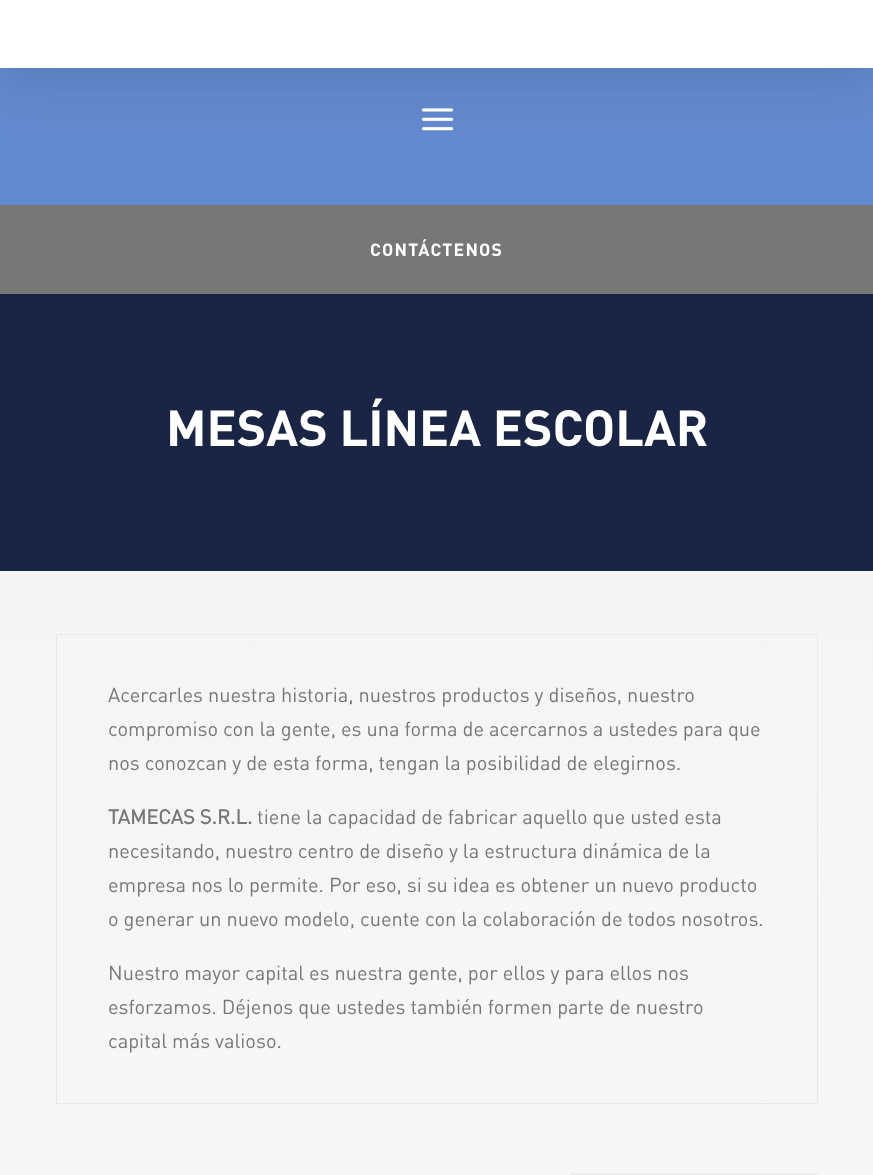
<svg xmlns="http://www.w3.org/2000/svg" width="873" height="1175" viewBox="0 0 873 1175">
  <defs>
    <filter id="blur1" x="-50%" y="-200%" width="200%" height="500%"><feGaussianBlur stdDeviation="31"/></filter>
    <linearGradient id="g1" gradientUnits="userSpaceOnUse" x1="437" y1="571" x2="437" y2="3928"><stop offset="0" stop-color="#f5f5f5"/><stop offset="1" stop-color="#ffffff"/></linearGradient>
  </defs>
  <rect width="100%" height="100%" fill="#1a2545"/>
  <rect x="0" y="68" width="873" height="137" fill="#6389ce"/>
  <image x="421" y="108" width="33" height="23" href="img1.png"/>
  <rect x="0" y="-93" width="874" height="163" fill="#000000" fill-opacity="0.15" filter="url(#blur1)"/>
  <rect x="0" y="0" width="873" height="68" fill="#ffffff"/>
  <rect x="0" y="205" width="873" height="89" fill="#777777"/>
  <text x="370" y="256" font-family="DIN" font-size="17.5" font-weight="bold" letter-spacing="1.25" fill="#ffffff">CONTÁCTENOS</text>
  <text x="166" y="446" font-family="DIN" font-size="50" font-weight="bold" fill="#ffffff">MESAS LÍNEA ESCOLAR</text>
  <rect x="0" y="571" width="873" height="604" fill="url(#g1)"/>
  <rect x="56.5" y="634.5" width="761" height="469" fill="none" stroke="#e8e8e8"/>
  <text x="108" y="702" font-family="DIN" font-size="20" fill="#777777">Acercarles nuestra historia, nuestros productos y diseños, nuestro</text>
  <text x="108" y="736" font-family="DIN" font-size="20" fill="#777777">compromiso con la gente, es una forma de acercarnos a ustedes para que</text>
  <text x="108" y="770" font-family="DIN" font-size="20" fill="#777777">nos conozcan y de esta forma, tengan la posibilidad de elegirnos.</text>
  <text x="108" y="824" font-family="'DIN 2'" font-size="20" font-weight="bold" fill="#777777">TAMECAS S.R.L.</text>
  <text x="257" y="824" font-family="DIN" font-size="20" fill="#777777">tiene la capacidad de fabricar aquello que usted esta</text>
  <text x="108" y="858" font-family="DIN" font-size="20" fill="#777777">necesitando, nuestro centro de diseño y la estructura dinámica de la</text>
  <text x="108" y="892" font-family="DIN" font-size="20" fill="#777777">empresa nos lo permite. Por eso, si su idea es obtener un nuevo producto</text>
  <text x="108" y="926" font-family="DIN" font-size="20" fill="#777777">o generar un nuevo modelo, cuente con la colaboración de todos nosotros.</text>
  <text x="108" y="980" font-family="DIN" font-size="20" fill="#777777">Nuestro mayor capital es nuestra gente, por ellos y para ellos nos</text>
  <text x="108" y="1014" font-family="DIN" font-size="20" fill="#777777">esforzamos. Déjenos que ustedes también formen parte de nuestro</text>
  <text x="108" y="1048" font-family="DIN" font-size="20" fill="#777777">capital más valioso.</text>
  <rect x="569" y="1173" width="249" height="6" rx="4" fill="#ececec"/>
</svg>
